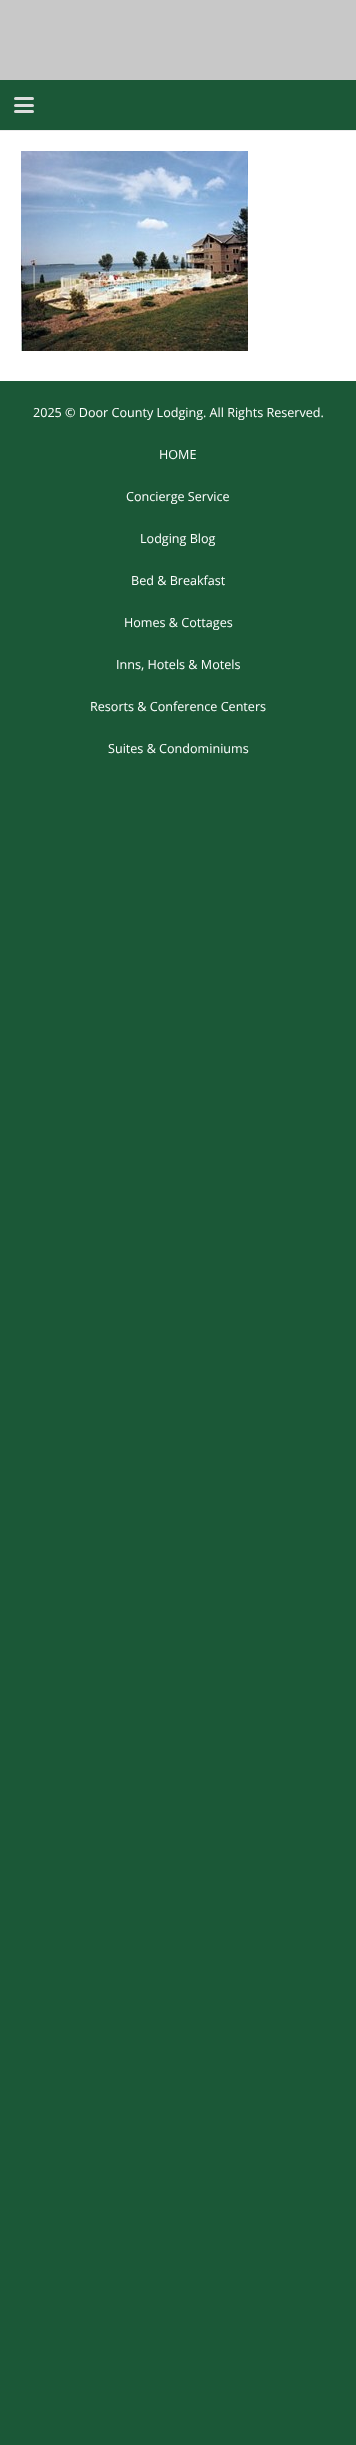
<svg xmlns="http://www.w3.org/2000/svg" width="356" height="2445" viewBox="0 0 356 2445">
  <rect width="100%" height="100%" fill="#1b5837"/>
  <rect x="0" y="131" width="356" height="250" fill="#ffffff"/>
  <rect x="0" y="0" width="356" height="80" fill="#c8c8c8"/>
  <rect x="0" y="130" width="356" height="1" fill="#ebebeb"/>
  <rect x="14" y="104" width="20" height="3" rx="1.5" fill="#dddddd"/>
  <rect x="14" y="97" width="20" height="3" rx="1.5" fill="#dddddd"/>
  <rect x="14" y="110" width="20" height="3" rx="1.5" fill="#dddddd"/>
  <image x="21" y="151" width="227" height="200" href="img1.png"/>
  <text x="33" y="417" font-family="Open Sans" font-size="12.6" fill="#ffffff">2025 © Door County Lodging. All Rights Reserved.</text>
  <text x="159" y="459" font-family="Open Sans" font-size="12.6" fill="#ffffff">HOME</text>
  <text x="126" y="501" font-family="Open Sans" font-size="12.6" fill="#ffffff">Concierge Service</text>
  <text x="140" y="543" font-family="Open Sans" font-size="12.6" fill="#ffffff">Lodging Blog</text>
  <text x="131" y="585" font-family="Open Sans" font-size="12.6" fill="#ffffff">Bed &amp; Breakfast</text>
  <text x="124" y="627" font-family="Open Sans" font-size="12.6" fill="#ffffff">Homes &amp; Cottages</text>
  <text x="116" y="669" font-family="Open Sans" font-size="12.6" fill="#ffffff">Inns, Hotels &amp; Motels</text>
  <text x="90" y="711" font-family="Open Sans" font-size="12.6" fill="#ffffff">Resorts &amp; Conference Centers</text>
  <text x="108" y="753" font-family="Open Sans" font-size="12.6" fill="#ffffff">Suites &amp; Condominiums</text>
</svg>
